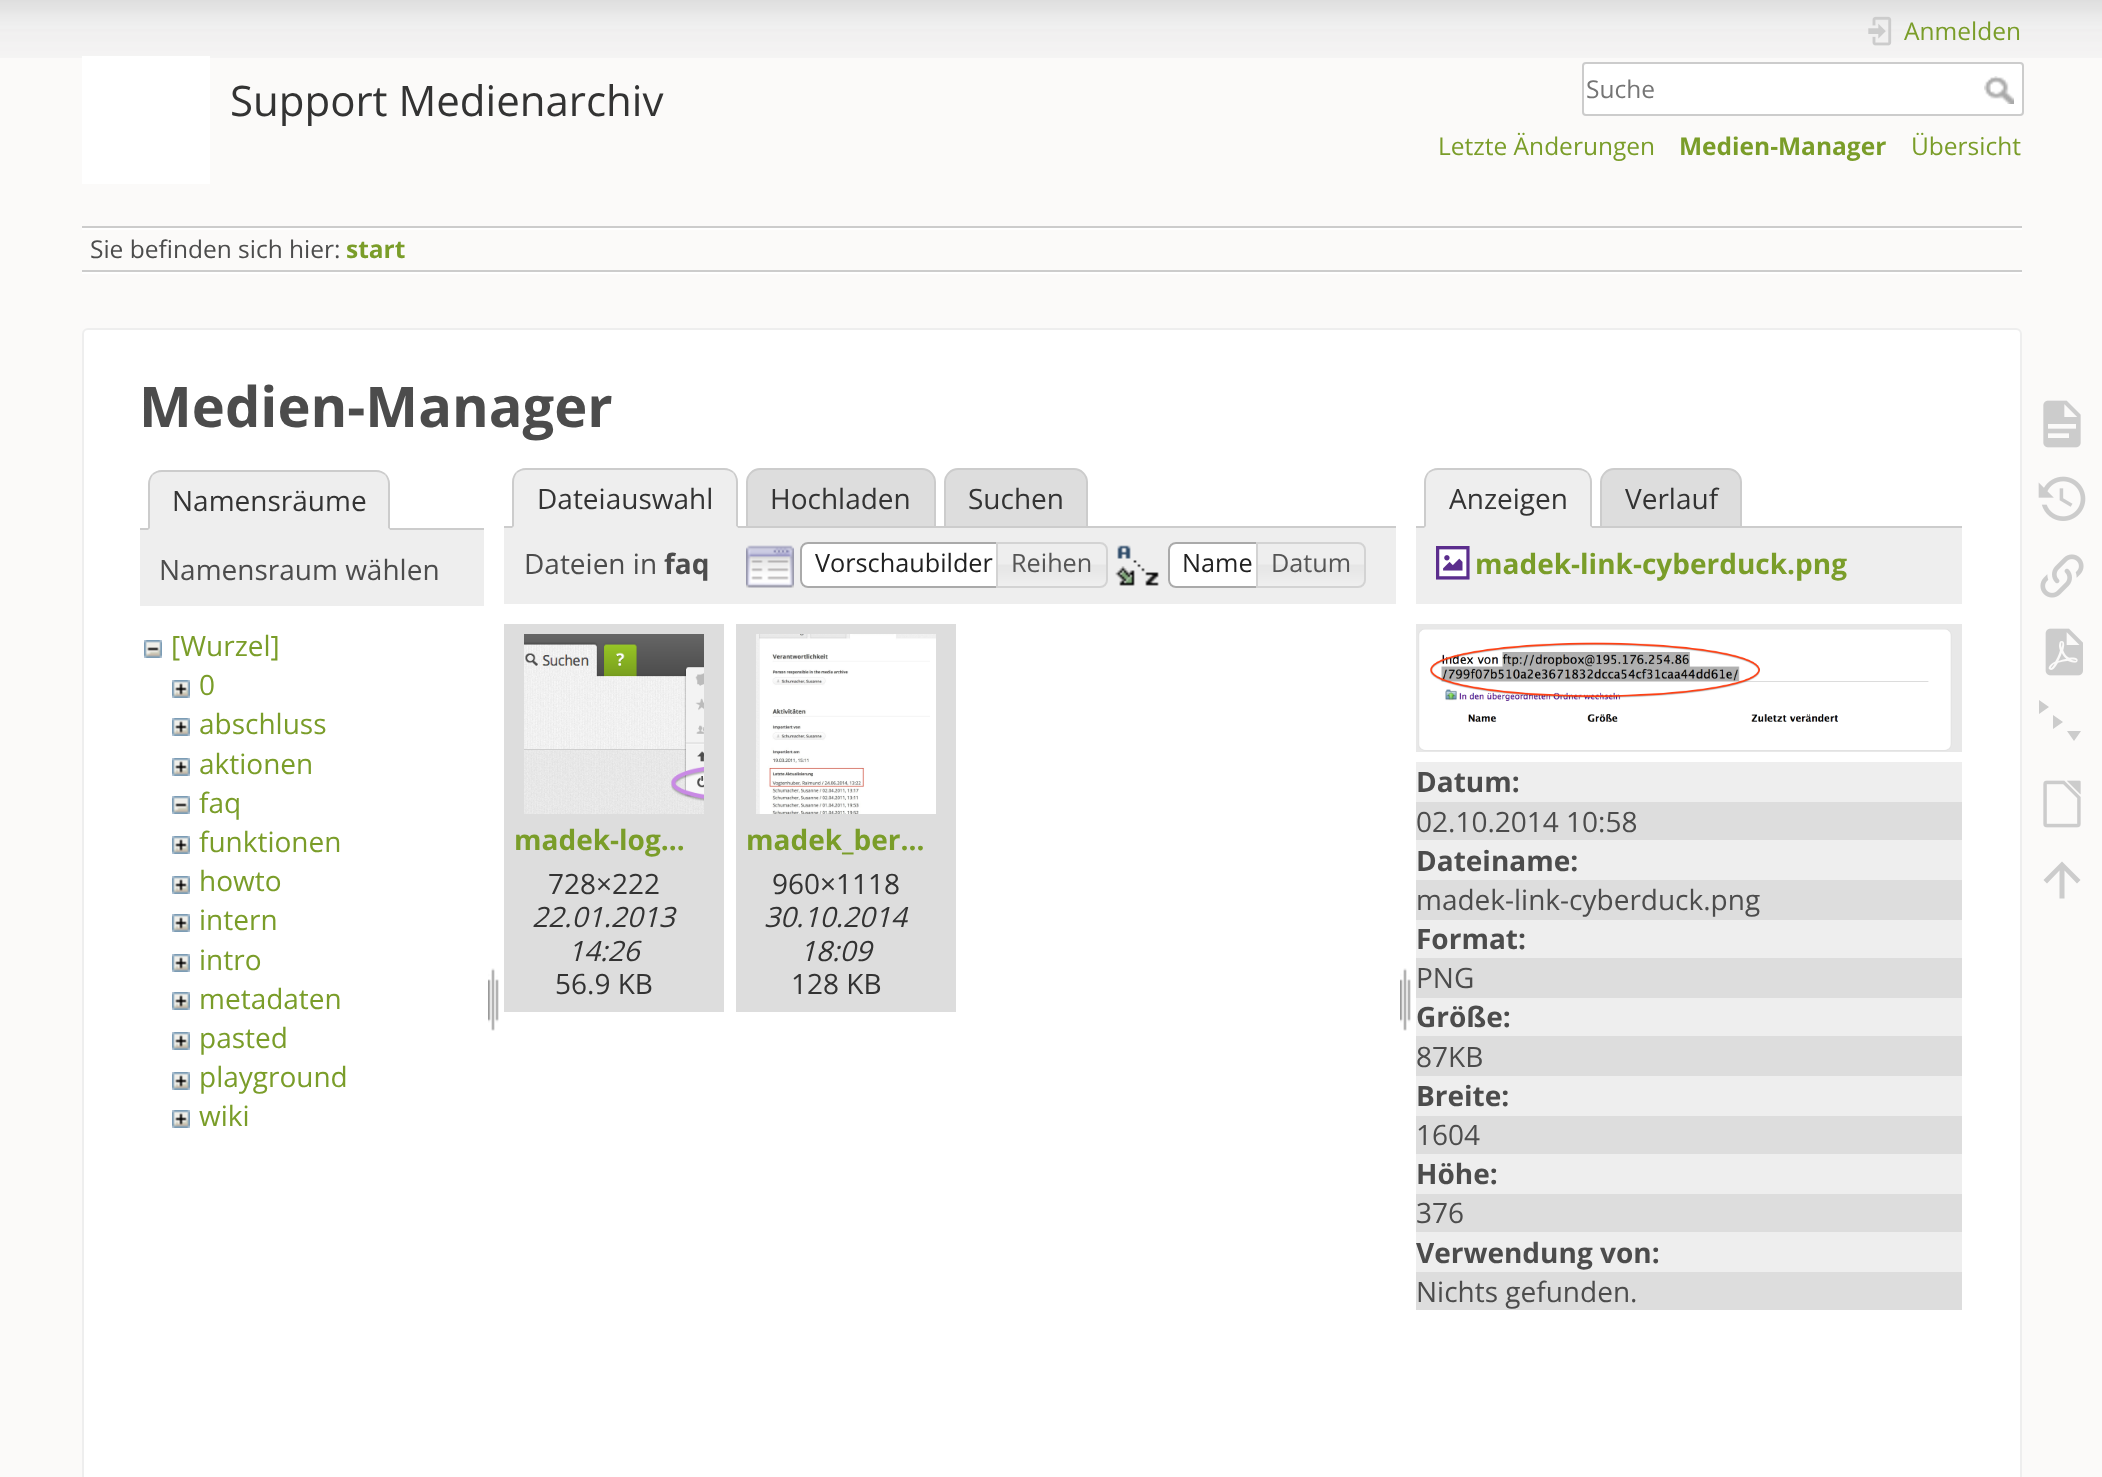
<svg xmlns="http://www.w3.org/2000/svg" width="2102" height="1477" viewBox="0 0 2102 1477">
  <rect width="100%" height="100%" fill="#fbfaf9"/>
  <image x="0" y="0" width="2102" height="58" href="img1.png"/>
  <rect x="82" y="56" width="128" height="128" fill="#ffffff"/>
  <text x="230" y="116" font-family="Open Sans" font-size="42" fill="#333333">Support Medienarchiv</text>
  <image x="1868" y="16" width="24" height="30" href="img2.png"/>
  <text x="1904" y="40" font-family="Open Sans" font-size="24.5" fill="#7a9d29">Anmelden</text>
  <rect x="1583" y="63" width="440" height="52" rx="3" fill="#ffffff" stroke="#cccccc" stroke-width="2"/>
  <text x="1586" y="98" font-family="Open Sans" font-size="24.5" fill="#757575">Suche</text>
  <image x="1984" y="76" width="30" height="28" href="img3.png"/>
  <text x="1438" y="155" font-family="Open Sans" font-size="24.5" fill="#7a9d29">Letzte Änderungen</text>
  <text x="1679" y="155" font-family="Open Sans" font-size="24.5" font-weight="bold" fill="#7a9d29">Medien-Manager</text>
  <text x="1911" y="155" font-family="Open Sans" font-size="24.5" fill="#7a9d29">Übersicht</text>
  <rect x="82" y="226" width="1940" height="2" fill="#cccccc"/>
  <rect x="82" y="272" width="1940" height="2" fill="#ffffff"/>
  <rect x="82" y="228" width="1940" height="2" fill="#ffffff"/>
  <rect x="82" y="270" width="1940" height="2" fill="#cccccc"/>
  <text x="90" y="258" font-family="Open Sans" font-size="24.5" fill="#4c4c4c">Sie befinden sich hier:</text>
  <text x="346" y="258" font-family="Open Sans" font-size="24.5" font-weight="bold" fill="#7a9d29">start</text>
  <rect x="83" y="329" width="1938" height="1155" rx="5" fill="#ffffff" stroke="#eeeeee" stroke-width="2"/>
  <text x="139" y="427" font-family="Open Sans" font-size="56" font-weight="bold" fill="#4c4c4c">Medien-Manager</text>
  <rect x="140" y="528" width="344" height="2" fill="#cccccc"/>
  <path d="M162 470H376C383.5 470 390 476.5 390 484V530H148V484C148 476.5 154.5 470 162 470Z" fill="#eeeeee"/>
  <path d="M162 470C158 470 154 472 152 474L153 475C156 473 158 472 162 472H376C380 472 382 473 385 475L386 474C384 472 380 470 376 470Z" fill="#cccccc"/>
  <path d="M390 530V484C390 480 388 476 386 474L385 475C387 478 388 480 388 484V528Z" fill="#cccccc"/>
  <path d="M390 530L388 528H150L148 530Z" fill="#eeeeee"/>
  <path d="M148 530L150 528V484C150 480 151 478 153 475L152 474C150 476 148 480 148 484Z" fill="#cccccc"/>
  <text x="172" y="511" font-family="Open Sans" font-size="28" fill="#333333">Namensräume</text>
  <rect x="140" y="530" width="344" height="76" fill="#eeeeee"/>
  <text x="159" y="580" font-family="Open Sans" font-size="28" fill="#4c4c4c">Namensraum wählen</text>
  <image x="144" y="640" width="18" height="18" href="img4.png"/>
  <text x="171" y="656" font-family="Open Sans" font-size="28" fill="#7a9d29">[Wurzel]</text>
  <image x="172" y="680" width="18" height="18" href="img5.png"/>
  <text x="199" y="695" font-family="Open Sans" font-size="28" fill="#7a9d29">0</text>
  <image x="172" y="718" width="18" height="18" href="img5.png"/>
  <text x="199" y="734" font-family="Open Sans" font-size="28" fill="#7a9d29">abschluss</text>
  <image x="172" y="758" width="18" height="18" href="img5.png"/>
  <text x="199" y="774" font-family="Open Sans" font-size="28" fill="#7a9d29">aktionen</text>
  <image x="172" y="796" width="18" height="18" href="img4.png"/>
  <text x="199" y="813" font-family="Open Sans" font-size="28" fill="#7a9d29">faq</text>
  <image x="172" y="836" width="18" height="18" href="img5.png"/>
  <text x="199" y="852" font-family="Open Sans" font-size="28" fill="#7a9d29">funktionen</text>
  <image x="172" y="876" width="18" height="18" href="img5.png"/>
  <text x="199" y="891" font-family="Open Sans" font-size="28" fill="#7a9d29">howto</text>
  <image x="172" y="914" width="18" height="18" href="img5.png"/>
  <text x="199" y="930" font-family="Open Sans" font-size="28" fill="#7a9d29">intern</text>
  <image x="172" y="954" width="18" height="18" href="img5.png"/>
  <text x="199" y="970" font-family="Open Sans" font-size="28" fill="#7a9d29">intro</text>
  <image x="172" y="992" width="18" height="18" href="img5.png"/>
  <text x="199" y="1009" font-family="Open Sans" font-size="28" fill="#7a9d29">metadaten</text>
  <image x="172" y="1032" width="18" height="18" href="img5.png"/>
  <text x="199" y="1048" font-family="Open Sans" font-size="28" fill="#7a9d29">pasted</text>
  <image x="172" y="1072" width="18" height="18" href="img5.png"/>
  <text x="199" y="1087" font-family="Open Sans" font-size="28" fill="#7a9d29">playground</text>
  <image x="172" y="1110" width="18" height="18" href="img5.png"/>
  <text x="199" y="1126" font-family="Open Sans" font-size="28" fill="#7a9d29">wiki</text>
  <image x="488" y="968" width="11" height="63" href="img6.png"/>
  <path d="M760 469H922C929 469 935 475 935 482V527H747V482C747 475 753 469 760 469Z" fill="#dddddd" stroke="#cccccc" stroke-width="2"/>
  <path d="M958 469H1074C1081 469 1087 475 1087 482V527H945V482C945 475 951 469 958 469Z" fill="#dddddd" stroke="#cccccc" stroke-width="2"/>
  <rect x="504" y="526" width="892" height="2" fill="#cccccc"/>
  <path d="M526 468H724C731.5 468 738 474.5 738 482V528H512V482C512 474.5 518.5 468 526 468Z" fill="#eeeeee"/>
  <path d="M526 468C522 468 518 470 516 472L517 473C520 471 522 470 526 470H724C728 470 730 471 733 473L734 472C732 470 728 468 724 468Z" fill="#cccccc"/>
  <path d="M738 528V482C738 478 736 474 734 472L733 473C735 476 736 478 736 482V526Z" fill="#cccccc"/>
  <path d="M738 528L736 526H514L512 528Z" fill="#eeeeee"/>
  <path d="M512 528L514 526V482C514 478 515 476 517 473L516 472C514 474 512 478 512 482Z" fill="#cccccc"/>
  <text x="537" y="509" font-family="Open Sans" font-size="28" fill="#333333">Dateiauswahl</text>
  <text x="770" y="509" font-family="Open Sans" font-size="28" fill="#333333">Hochladen</text>
  <text x="968" y="509" font-family="Open Sans" font-size="28" fill="#333333">Suchen</text>
  <rect x="504" y="528" width="892" height="76" fill="#eeeeee"/>
  <text x="524" y="574" font-family="Open Sans" font-size="28" fill="#4c4c4c">Dateien in</text>
  <text x="664" y="574" font-family="Open Sans" font-size="28" font-weight="bold" fill="#4c4c4c">faq</text>
  <image x="746" y="545" width="48" height="43" href="img7.png"/>
  <path d="M808 542H1006V588H808C803.5 588 800 584.5 800 580V550C800 545.5 803.5 542 808 542Z" fill="#ffffff"/>
  <image x="800" y="542" width="6" height="46" href="img8.png"/>
  <path d="M808 543H1005V587H808C804 587 801 584 801 580V550C801 546 804 543 808 543Z" fill="none" stroke="#aaaaaa" stroke-width="2"/>
  <text x="815" y="572" font-family="Open Sans" font-size="25.25" fill="#212121">Vorschaubilder</text>
  <image x="998" y="542" width="110" height="46" href="img9.png"/>
  <path d="M997 543H1100C1104 543 1107 546 1107 550V580C1107 584 1104 587 1100 587H997Z" fill="none" stroke="#d3d3d3" stroke-width="2"/>
  <text x="1011" y="572" font-family="Open Sans" font-size="25.25" fill="#555555">Reihen</text>
  <image x="1115" y="545" width="44" height="41" href="img10.png"/>
  <path d="M1176 542H1266V588H1176C1171.5 588 1168 584.5 1168 580V550C1168 545.5 1171.5 542 1176 542Z" fill="#ffffff"/>
  <image x="1168" y="542" width="6" height="46" href="img8.png"/>
  <path d="M1176 543H1265V587H1176C1172 587 1169 584 1169 580V550C1169 546 1172 543 1176 543Z" fill="none" stroke="#aaaaaa" stroke-width="2"/>
  <text x="1182" y="572" font-family="Open Sans" font-size="25.25" fill="#212121">Name</text>
  <image x="1258" y="542" width="108" height="46" href="img11.png"/>
  <path d="M1257 543H1358C1362 543 1365 546 1365 550V580C1365 584 1362 587 1358 587H1257Z" fill="none" stroke="#d3d3d3" stroke-width="2"/>
  <text x="1271" y="572" font-family="Open Sans" font-size="25.25" fill="#555555">Datum</text>
  <rect x="504" y="624" width="220" height="388" fill="#dddddd"/>
  <image x="524" y="634" width="180" height="180" href="img12.png"/>
  <text x="514" y="850" font-family="Open Sans" font-size="28" font-weight="bold" fill="#7a9d29">madek-log…</text>
  <text x="548" y="894" font-family="Open Sans" font-size="28" fill="#333333">728×222</text>
  <text x="532" y="927" font-family="Open Sans" font-size="28" font-style="italic" fill="#333333">22.01.2013</text>
  <text x="568" y="961" font-family="Open Sans" font-size="28" font-style="italic" fill="#333333">14:26</text>
  <text x="555" y="994" font-family="Open Sans" font-size="28" fill="#333333">56.9 KB</text>
  <rect x="736" y="624" width="220" height="388" fill="#dddddd"/>
  <image x="756" y="634" width="180" height="180" href="img13.png"/>
  <text x="746" y="850" font-family="Open Sans" font-size="28" font-weight="bold" fill="#7a9d29">madek_ber…</text>
  <text x="772" y="894" font-family="Open Sans" font-size="28" fill="#333333">960×1118</text>
  <text x="764" y="927" font-family="Open Sans" font-size="28" font-style="italic" fill="#333333">30.10.2014</text>
  <text x="800" y="961" font-family="Open Sans" font-size="28" font-style="italic" fill="#333333">18:09</text>
  <text x="791" y="994" font-family="Open Sans" font-size="28" fill="#333333">128 KB</text>
  <image x="1400" y="968" width="11" height="63" href="img6.png"/>
  <path d="M1614 469H1728C1735 469 1741 475 1741 482V527H1601V482C1601 475 1607 469 1614 469Z" fill="#dddddd" stroke="#cccccc" stroke-width="2"/>
  <rect x="1416" y="526" width="546" height="2" fill="#cccccc"/>
  <path d="M1438 468H1578C1585.5 468 1592 474.5 1592 482V528H1424V482C1424 474.5 1430.5 468 1438 468Z" fill="#eeeeee"/>
  <path d="M1438 468C1434 468 1430 470 1428 472L1429 473C1432 471 1434 470 1438 470H1578C1582 470 1584 471 1587 473L1588 472C1586 470 1582 468 1578 468Z" fill="#cccccc"/>
  <path d="M1592 528V482C1592 478 1590 474 1588 472L1587 473C1589 476 1590 478 1590 482V526Z" fill="#cccccc"/>
  <path d="M1592 528L1590 526H1426L1424 528Z" fill="#eeeeee"/>
  <path d="M1424 528L1426 526V482C1426 478 1427 476 1429 473L1428 472C1426 474 1424 478 1424 482Z" fill="#cccccc"/>
  <text x="1449" y="509" font-family="Open Sans" font-size="28" fill="#333333">Anzeigen</text>
  <text x="1625" y="509" font-family="Open Sans" font-size="28" fill="#333333">Verlauf</text>
  <rect x="1416" y="528" width="546" height="76" fill="#eeeeee"/>
  <image x="1436" y="546" width="34" height="34" href="img14.png"/>
  <text x="1475" y="574" font-family="Open Sans" font-size="28" font-weight="bold" fill="#7a9d29">madek-link-cyberduck.png</text>
  <image x="1416" y="624" width="546" height="128" href="img15.png"/>
  <rect x="1416" y="762" width="546" height="40" fill="#eeeeee"/>
  <text x="1416" y="792" font-family="Open Sans" font-size="28" font-weight="bold" fill="#4c4c4c">Datum:</text>
  <rect x="1416" y="802" width="546" height="38" fill="#dddddd"/>
  <text x="1416" y="832" font-family="Open Sans" font-size="28" fill="#4c4c4c">02.10.2014 10:58</text>
  <rect x="1416" y="840" width="546" height="40" fill="#eeeeee"/>
  <text x="1416" y="871" font-family="Open Sans" font-size="28" font-weight="bold" fill="#4c4c4c">Dateiname:</text>
  <rect x="1416" y="880" width="546" height="40" fill="#dddddd"/>
  <text x="1416" y="910" font-family="Open Sans" font-size="28" fill="#4c4c4c">madek-link-cyberduck.png</text>
  <rect x="1416" y="920" width="546" height="38" fill="#eeeeee"/>
  <text x="1416" y="949" font-family="Open Sans" font-size="28" font-weight="bold" fill="#4c4c4c">Format:</text>
  <rect x="1416" y="958" width="546" height="40" fill="#dddddd"/>
  <text x="1416" y="988" font-family="Open Sans" font-size="28" fill="#4c4c4c">PNG</text>
  <rect x="1416" y="998" width="546" height="38" fill="#eeeeee"/>
  <text x="1416" y="1027" font-family="Open Sans" font-size="28" font-weight="bold" fill="#4c4c4c">Größe:</text>
  <rect x="1416" y="1036" width="546" height="40" fill="#dddddd"/>
  <text x="1416" y="1067" font-family="Open Sans" font-size="28" fill="#4c4c4c">87KB</text>
  <rect x="1416" y="1076" width="546" height="40" fill="#eeeeee"/>
  <text x="1416" y="1106" font-family="Open Sans" font-size="28" font-weight="bold" fill="#4c4c4c">Breite:</text>
  <rect x="1416" y="1116" width="546" height="38" fill="#dddddd"/>
  <text x="1416" y="1145" font-family="Open Sans" font-size="28" fill="#4c4c4c">1604</text>
  <rect x="1416" y="1154" width="546" height="40" fill="#eeeeee"/>
  <text x="1416" y="1184" font-family="Open Sans" font-size="28" font-weight="bold" fill="#4c4c4c">Höhe:</text>
  <rect x="1416" y="1194" width="546" height="38" fill="#dddddd"/>
  <text x="1416" y="1223" font-family="Open Sans" font-size="28" fill="#4c4c4c">376</text>
  <rect x="1416" y="1232" width="546" height="40" fill="#eeeeee"/>
  <text x="1416" y="1263" font-family="Open Sans" font-size="28" font-weight="bold" fill="#4c4c4c">Verwendung von:</text>
  <rect x="1416" y="1272" width="546" height="38" fill="#dddddd"/>
  <text x="1416" y="1302" font-family="Open Sans" font-size="28" fill="#4c4c4c">Nichts gefunden.</text>
  <image x="2043" y="400" width="38" height="48" href="img16.png"/>
  <image x="2038" y="476" width="48" height="45" href="img17.png"/>
  <image x="2040" y="554" width="44" height="44" href="img18.png"/>
  <image x="2045" y="628" width="38" height="48" href="img19.png"/>
  <path d="M2039 700L2049 707L2039 714ZM2053 715L2063 722L2053 729ZM2067 731H2081L2074 741Z" fill="#cccccc"/>
  <image x="2043" y="780" width="38" height="48" href="img20.png"/>
  <path d="M2064.5 898.5H2059.5V870.5L2047 883.5L2043.5 880L2062 861.5L2080.5 880L2077 883.5L2064.5 870.5Z" fill="#cccccc"/>
</svg>
